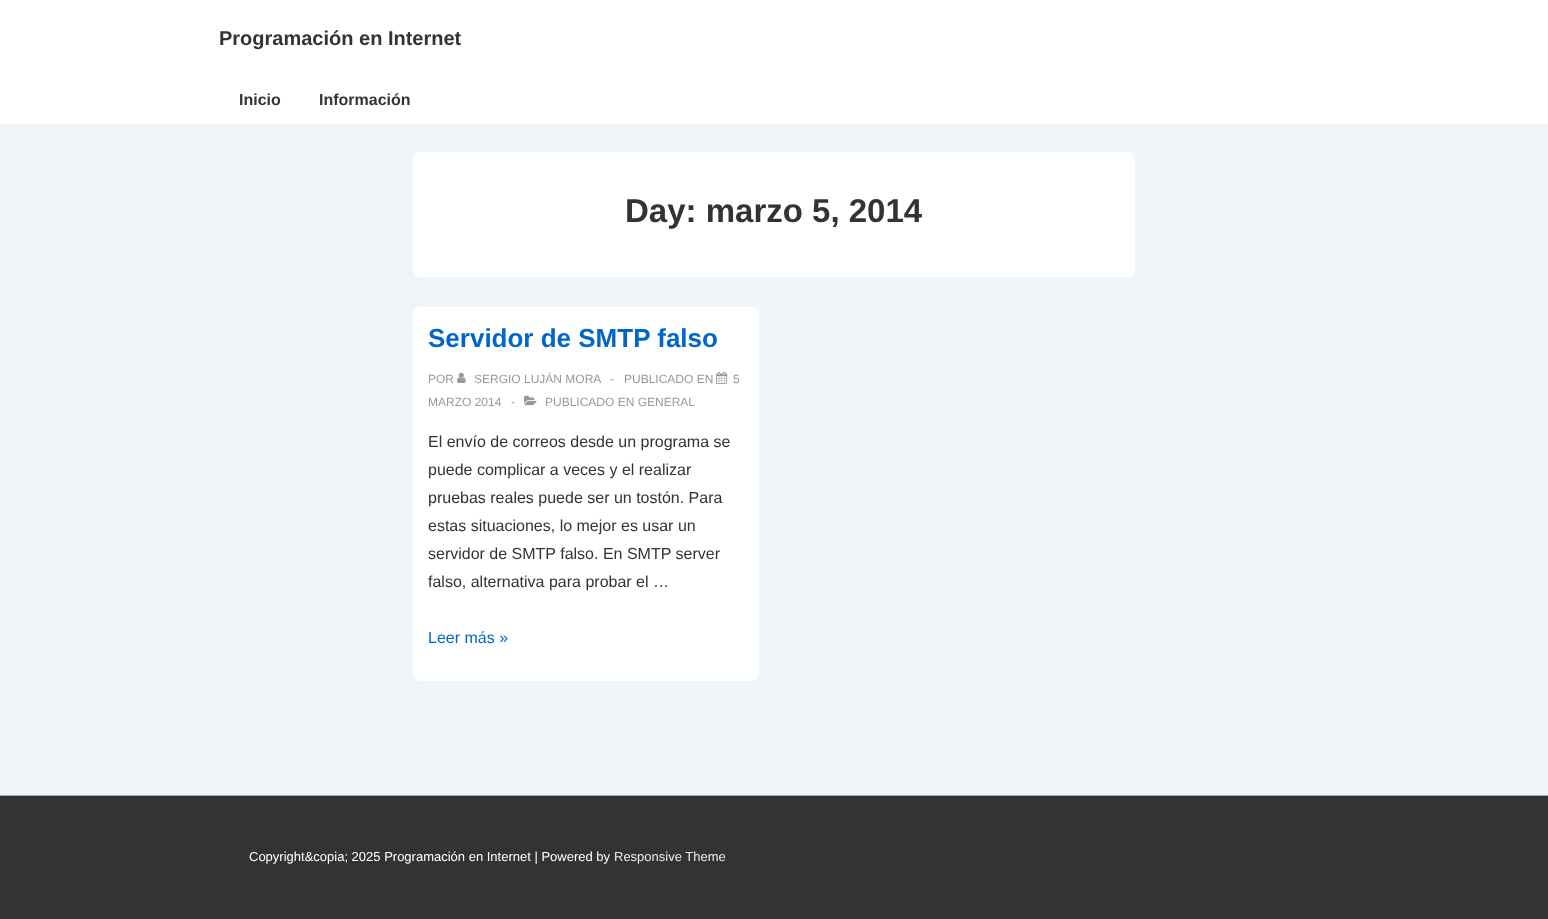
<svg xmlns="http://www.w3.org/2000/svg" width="1548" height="919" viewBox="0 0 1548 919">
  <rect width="100%" height="100%" fill="#f0f5fa"/>
  <rect x="0" y="0" width="1548" height="124" fill="#ffffff"/>
  <text x="219" y="45" font-family="Liberation Sans" font-size="20" font-weight="bold" fill="#333333">Programación en Internet</text>
  <text x="239" y="105" font-family="Liberation Sans" font-size="16" font-weight="bold" fill="#333333">Inicio</text>
  <text x="319" y="105" font-family="Liberation Sans" font-size="16" font-weight="bold" fill="#333333">Información</text>
  <rect x="413" y="152" width="722" height="125" rx="8" fill="#ffffff"/>
  <text x="625" y="222" font-family="Liberation Sans" font-size="33" font-weight="bold" fill="#333333">Day: marzo 5, 2014</text>
  <rect x="413" y="307" width="346" height="374" rx="8" fill="#ffffff"/>
  <text x="428" y="347" font-family="Liberation Sans" font-size="26" font-weight="bold" fill="#0066cc">Servidor de SMTP falso</text>
  <text x="428" y="383" font-family="Liberation Sans" font-size="12" fill="#999999">POR</text>
  <image x="457" y="372" width="9" height="11" href="img1.png"/>
  <text x="474" y="383" font-family="Liberation Sans" font-size="12" fill="#999999">SERGIO LUJÁN MORA</text>
  <text x="610" y="383" font-family="Liberation Sans" font-size="12" fill="#999999">-</text>
  <text x="624" y="383" font-family="Liberation Sans" font-size="12" fill="#999999">PUBLICADO EN</text>
  <image x="716" y="371" width="12" height="13" href="img2.png"/>
  <text x="733" y="383" font-family="Liberation Sans" font-size="12" fill="#999999">5</text>
  <text x="428" y="406" font-family="Liberation Sans" font-size="12" fill="#999999">MARZO 2014</text>
  <text x="511" y="406" font-family="Liberation Sans" font-size="12" fill="#999999">-</text>
  <image x="524" y="395" width="13" height="11" href="img3.png"/>
  <text x="545" y="406" font-family="Liberation Sans" font-size="12" fill="#999999">PUBLICADO EN GENERAL</text>
  <text x="428" y="447" font-family="Liberation Sans" font-size="16" fill="#333333">El envío de correos desde un programa se</text>
  <text x="428" y="475" font-family="Liberation Sans" font-size="16" fill="#333333">puede complicar a veces y el realizar</text>
  <text x="428" y="503" font-family="Liberation Sans" font-size="16" fill="#333333">pruebas reales puede ser un tostón. Para</text>
  <text x="428" y="531" font-family="Liberation Sans" font-size="16" fill="#333333">estas situaciones, lo mejor es usar un</text>
  <text x="428" y="559" font-family="Liberation Sans" font-size="16" fill="#333333">servidor de SMTP falso. En SMTP server</text>
  <text x="428" y="587" font-family="Liberation Sans" font-size="16" fill="#333333">falso, alternativa para probar el …</text>
  <text x="428" y="643" font-family="Liberation Sans" font-size="16" fill="#0066cc">Leer más »</text>
  <rect x="0" y="796" width="1548" height="123" fill="#333333"/>
  <rect x="0" y="795" width="1548" height="1" fill="#aaaaaa"/>
  <text x="249" y="861" font-family="Liberation Sans" font-size="13" fill="#ffffff">Copyright&amp;copia; 2025 Programación en Internet | Powered by</text>
  <text x="614" y="861" font-family="Liberation Sans" font-size="13" fill="#eaeaea">Responsive Theme</text>
</svg>
